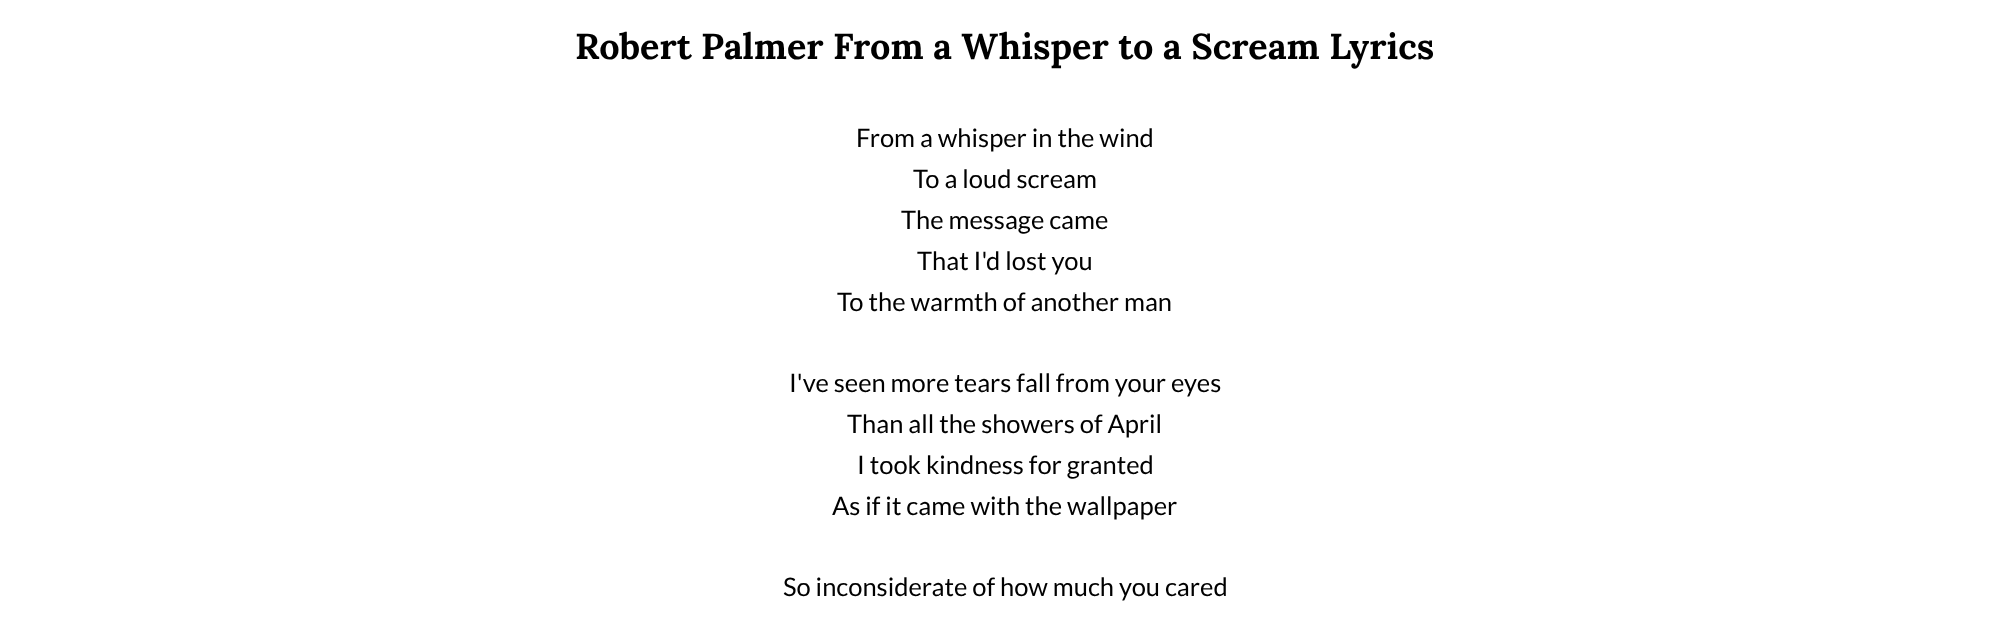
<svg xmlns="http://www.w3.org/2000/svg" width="2009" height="628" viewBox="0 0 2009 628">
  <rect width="100%" height="100%" fill="#ffffff"/>
  <text x="575" y="59" font-family="Lora" font-size="36" font-weight="bold" fill="#000000">Robert Palmer From a Whisper to a Scream Lyrics</text>
  <text x="856" y="147" font-family="Lato" font-size="25.5" fill="#000000">From a whisper in the wind</text>
  <text x="913" y="188" font-family="Lato" font-size="25.5" fill="#000000">To a loud scream</text>
  <text x="901" y="229" font-family="Lato" font-size="25.5" fill="#000000">The message came</text>
  <text x="917" y="270" font-family="Lato" font-size="25.5" fill="#000000">That I'd lost you</text>
  <text x="837" y="311" font-family="Lato" font-size="25.5" fill="#000000">To the warmth of another man</text>
  <text x="789" y="392" font-family="Lato" font-size="25.5" fill="#000000">I've seen more tears fall from your eyes</text>
  <text x="847" y="433" font-family="Lato" font-size="25.5" fill="#000000">Than all the showers of April</text>
  <text x="857" y="474" font-family="Lato" font-size="25.5" fill="#000000">I took kindness for granted</text>
  <text x="832" y="515" font-family="Lato" font-size="25.5" fill="#000000">As if it came with the wallpaper</text>
  <text x="783" y="596" font-family="Lato" font-size="25.5" fill="#000000">So inconsiderate of how much you cared</text>
</svg>
